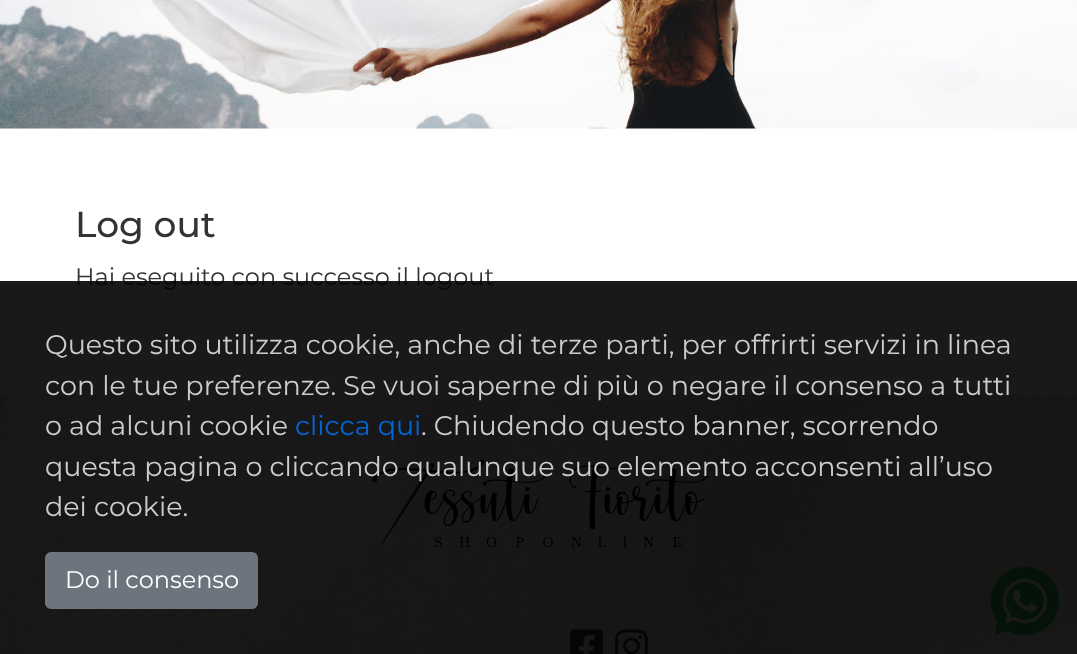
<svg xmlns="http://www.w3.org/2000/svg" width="1077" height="654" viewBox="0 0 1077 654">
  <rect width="100%" height="100%" fill="#ffffff"/>
  <image x="0" y="0" width="1077" height="129" href="img1.png"/>
  <text x="75" y="237" font-family="Montserrat" font-size="36" font-weight="500" fill="#333333">Log out</text>
  <text x="75" y="285" font-family="Montserrat" font-size="24" fill="#333333">Hai eseguito con successo il logout</text>
  <image x="0" y="394" width="1077" height="260" href="img2.png"/>
  <image x="372" y="459" width="336" height="88" href="img3.png"/>
  <image x="570" y="629" width="33" height="25" href="img4.png"/>
  <image x="615" y="629" width="33" height="25" href="img5.png"/>
  <image x="990" y="566" width="70" height="70" href="img6.png"/>
  <rect x="0" y="281" width="1077" height="373" fill="#000000" fill-opacity="0.9"/>
  <text x="45" y="354" font-family="Montserrat" font-size="27" fill="#cccccc">Questo sito utilizza cookie, anche di terze parti, per offrirti servizi in linea</text>
  <text x="45" y="395" font-family="Montserrat" font-size="27" fill="#cccccc">con le tue preferenze. Se vuoi saperne di più o negare il consenso a tutti</text>
  <text x="45" y="435" font-family="Montserrat" font-size="27" fill="#cccccc">o ad alcuni cookie</text>
  <text x="295" y="435" font-family="Montserrat" font-size="27" fill="#0366d6">clicca qui</text>
  <text x="421" y="435" font-family="Montserrat" font-size="27" fill="#cccccc">. Chiudendo questo banner, scorrendo</text>
  <text x="45" y="476" font-family="Montserrat" font-size="27" fill="#cccccc">questa pagina o cliccando qualunque suo elemento acconsenti all’uso</text>
  <text x="45" y="516" font-family="Montserrat" font-size="27" fill="#cccccc">dei cookie.</text>
  <rect x="46" y="553" width="211" height="55" rx="5" fill="#6c757d" stroke="#6c757d" stroke-width="2"/>
  <text x="65" y="588" font-family="Montserrat" font-size="24" fill="#ffffff">Do il consenso</text>
</svg>
